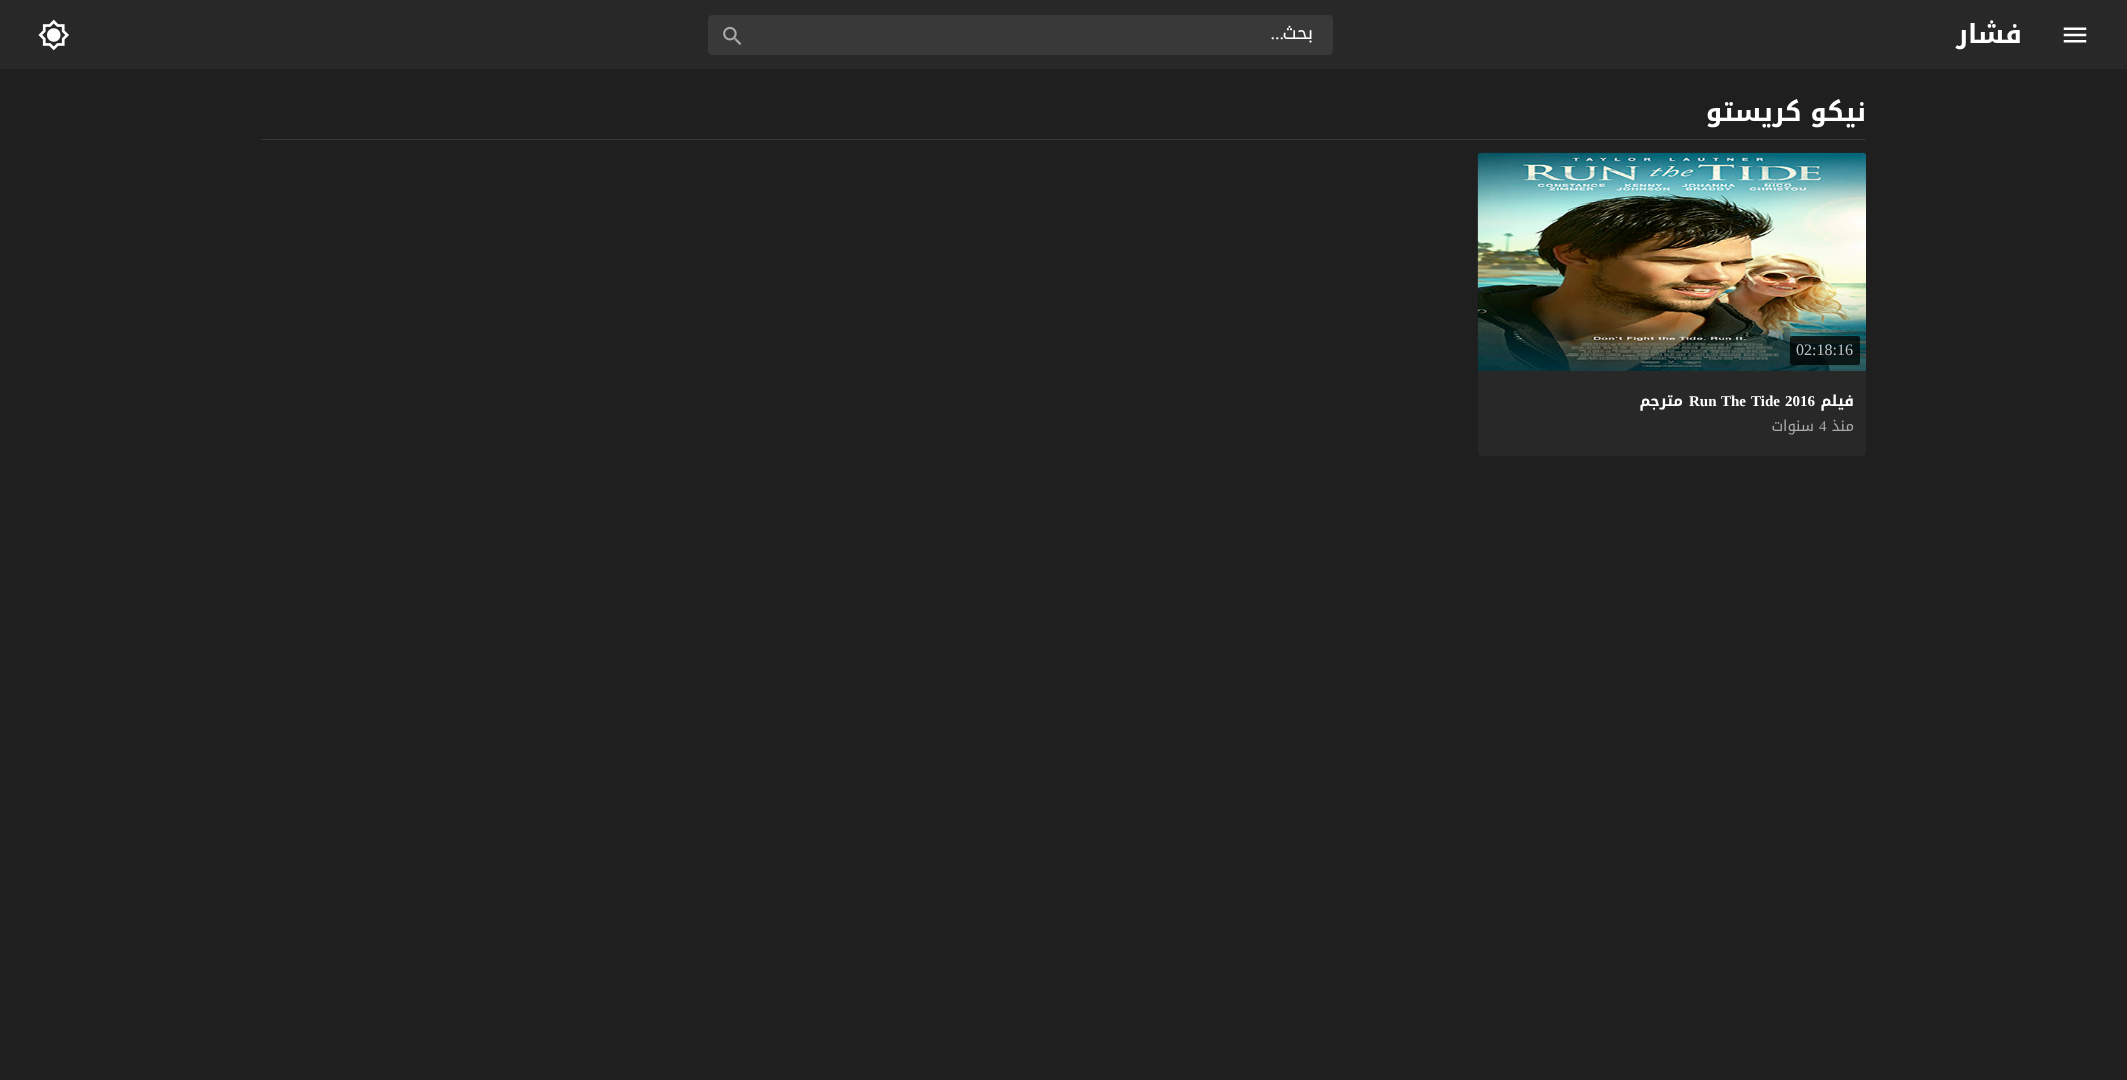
<svg xmlns="http://www.w3.org/2000/svg" width="2127" height="1080" viewBox="0 0 2127 1080">
  <rect width="100%" height="100%" fill="#1f1f1f"/>
  <rect x="0" y="0" width="2127" height="69" fill="#282828"/>
  <image x="2063" y="27" width="24" height="16" href="img1.png"/>
  <text x="2022" y="43" font-family="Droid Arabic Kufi" font-size="26.25" font-weight="bold" direction="rtl" fill="#ffffff">فشار</text>
  <path d="M770 15H1329C1331 15 1333 17 1333 19V51C1333 53 1331 55 1329 55H770Z" fill="#393939"/>
  <text x="1313" y="39" font-family="Droid Arabic Kufi" font-size="18" direction="rtl" fill="#ffffff">بحث</text>
  <text x="1284" y="39" font-family="Liberation Serif" font-size="18" direction="rtl" fill="#ffffff">...</text>
  <path d="M712 15H770V55H712C710 55 708 53 708 51V19C708 17 710 15 712 15Z" fill="#393939"/>
  <image x="723" y="26" width="19" height="19" href="img2.png"/>
  <image x="38" y="19" width="31" height="32" href="img3.png"/>
  <rect x="261" y="139" width="1605" height="1" fill="#363636"/>
  <text x="1866" y="121" font-family="Droid Arabic Kufi" font-size="26.25" font-weight="bold" direction="rtl" fill="#ffffff">نيكو كريستو</text>
  <rect x="1478" y="153" width="388" height="303" rx="4" fill="#282828"/>
  <image x="1477" y="152" width="389" height="219" href="img4.png"/>
  <rect x="1790" y="336" width="70" height="29" rx="2.5" fill="#000000" fill-opacity="0.75"/>
  <text x="1796" y="355" font-family="Liberation Serif" font-size="16" fill="#c1c4c4">02:18:16</text>
  <text x="1854" y="406" font-family="Droid Arabic Kufi" font-size="15" font-weight="bold" direction="rtl" fill="#ffffff">فيلم</text>
  <text x="1785" y="406" font-family="Liberation Serif" font-size="15" font-weight="bold" fill="#ffffff">2016</text>
  <text x="1751" y="406" font-family="Liberation Serif" font-size="15" font-weight="bold" fill="#ffffff">Tide</text>
  <text x="1721" y="406" font-family="Liberation Serif" font-size="15" font-weight="bold" fill="#ffffff">The</text>
  <text x="1689" y="406" font-family="Liberation Serif" font-size="15" font-weight="bold" fill="#ffffff">Run</text>
  <text x="1683" y="406" font-family="Droid Arabic Kufi" font-size="15" font-weight="bold" direction="rtl" fill="#ffffff">مترجم</text>
  <text x="1854" y="431" font-family="Droid Arabic Kufi" font-size="15" direction="rtl" fill="#aaaaaa">منذ</text>
  <text x="1819" y="431" font-family="Liberation Serif" font-size="15" fill="#aaaaaa">4</text>
  <text x="1814" y="431" font-family="Droid Arabic Kufi" font-size="15" direction="rtl" fill="#aaaaaa">سنوات</text>
</svg>
